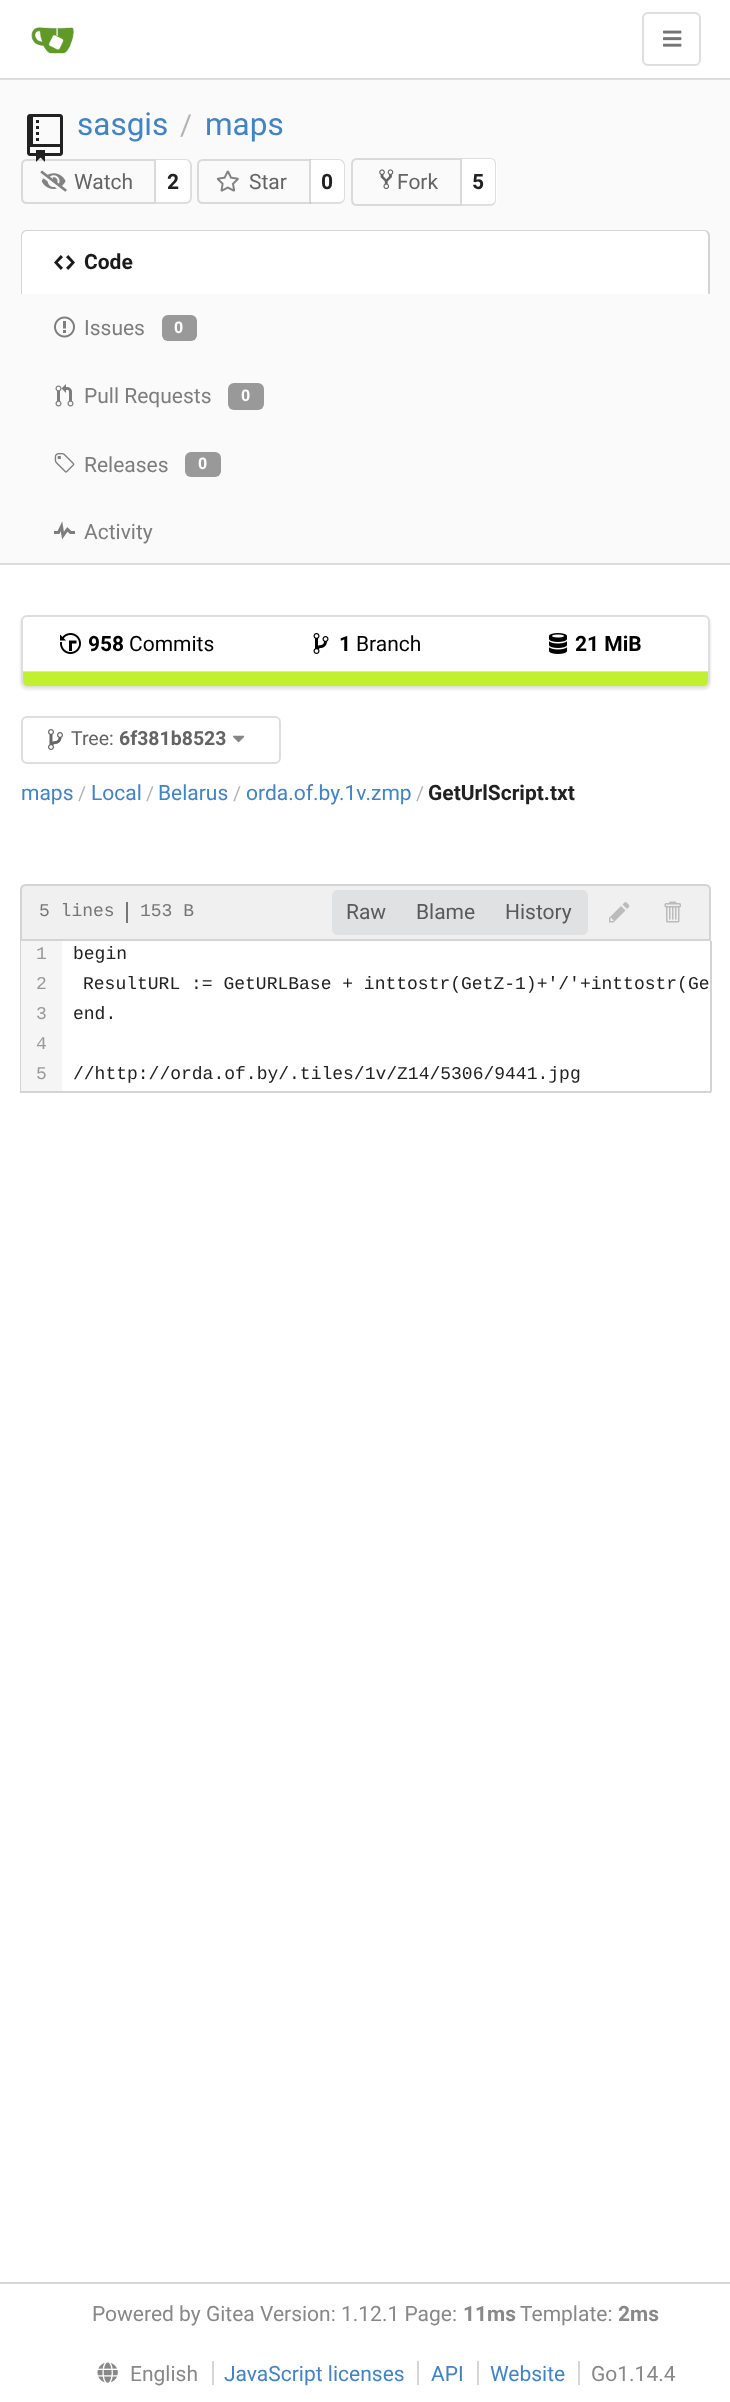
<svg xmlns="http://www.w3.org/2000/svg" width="730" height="2402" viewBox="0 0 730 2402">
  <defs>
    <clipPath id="clip1"><path d="M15 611H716V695H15ZM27 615H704C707.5 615 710 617.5 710 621V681C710 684.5 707.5 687 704 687H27C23.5 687 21 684.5 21 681V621C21 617.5 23.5 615 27 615Z" clip-rule="evenodd"/></clipPath>
    <filter id="blur1" x="-50%" y="-200%" width="200%" height="500%"><feGaussianBlur stdDeviation="1.5"/></filter>
  </defs>
  <rect width="100%" height="100%" fill="#ffffff"/>
  <rect x="0" y="564" width="730" height="1" fill="#dedede"/>
  <rect x="0" y="78" width="730" height="2" fill="#dddddd"/>
  <image x="31" y="27" width="43" height="27" href="img1.png"/>
  <rect x="643" y="13" width="57" height="52" rx="5" fill="none" stroke="#dedede" stroke-width="2"/>
  <image x="663" y="30" width="19" height="17" href="img2.png"/>
  <rect x="0" y="80" width="730" height="483" fill="#fafafa"/>
  <rect x="0" y="563" width="730" height="1" fill="#dadada"/>
  <path d="M27 160H155V203H27C24 203 22 201 22 198V165C22 162 24 160 27 160Z" fill="none" stroke="#dadada" stroke-width="2"/>
  <image x="27" y="114" width="36" height="48" href="img3.png"/>
  <text x="77" y="135" font-family="Roboto" font-size="31.5" fill="#4183c4">sasgis</text>
  <text x="180" y="135" font-family="Roboto" font-size="29" fill="#b4b4b4">/</text>
  <text x="205" y="135" font-family="Roboto" font-size="31.5" fill="#4183c4">maps</text>
  <image x="40" y="170" width="27" height="22" href="img4.png"/>
  <text x="74" y="189" font-family="Roboto" font-size="21" fill="#646464">Watch</text>
  <path d="M156 159H186C189.5 159 192 161.5 192 165V198C192 201.5 189.5 204 186 204H156Z" fill="#ffffff"/>
  <path d="M156 159H186C189 159 192 162 192 165V198C192 201 189 204 186 204H156ZM156 160H186C188 160 190 163 190 165V198C190 200 188 202 186 202H156Z" fill="#dedede" fill-rule="evenodd"/>
  <text x="167" y="189" font-family="Roboto" font-size="21" font-weight="bold" fill="#212121">2</text>
  <path d="M203 160H310V203H203C200 203 198 201 198 198V165C198 162 200 160 203 160Z" fill="none" stroke="#dadada" stroke-width="2"/>
  <image x="216" y="170" width="23" height="22" href="img5.png"/>
  <text x="249" y="189" font-family="Roboto" font-size="21" fill="#646464">Star</text>
  <path d="M311 159H339C342.5 159 345 161.5 345 165V198C345 201.5 342.5 204 339 204H311Z" fill="#ffffff"/>
  <path d="M310 159H339C342 159 345 162 345 165V198C345 201 342 204 339 204H310ZM310 160H339C341 160 344 163 344 165V198C344 200 341 202 339 202H310Z" fill="#222426" fill-opacity="0.15" fill-rule="evenodd"/>
  <text x="321" y="189" font-family="Roboto" font-size="21" font-weight="bold" fill="#212121">0</text>
  <path d="M357 159H461V205H357C354 205 352 203 352 200V164C352 161 354 159 357 159Z" fill="none" stroke="#dadada" stroke-width="2"/>
  <image x="379" y="169" width="15" height="21" href="img6.png"/>
  <text x="397" y="189" font-family="Roboto" font-size="21" fill="#646464">Fork</text>
  <path d="M462 158H491C494.5 158 497 160.5 497 164V200C497 203.5 494.5 206 491 206H462Z" fill="#ffffff"/>
  <path d="M462 158H490C494 158 496 160 496 164V200C496 203 494 206 490 206H462ZM462 159H490C493 159 495 161 495 164V200C495 202 493 204 490 204H462Z" fill="#dedede" fill-rule="evenodd"/>
  <text x="472" y="189" font-family="Roboto" font-size="21" font-weight="bold" fill="#212121">5</text>
  <path d="M27 230H704C707.5 230 710 232.5 710 236V294H21V236C21 232.5 23.5 230 27 230Z" fill="#ffffff"/>
  <path d="M27 230H704C707 230 710 232 710 236V294H21V236C21 232 24 230 27 230ZM27 231H704C706 231 708 233 708 236V294H22V236C22 233 25 231 27 231Z" fill="#d4d4d5" fill-rule="evenodd"/>
  <image x="54" y="255" width="21" height="15" href="img7.png"/>
  <text x="84" y="269" font-family="Roboto" font-size="21" font-weight="bold" fill="#1a1a1a">Code</text>
  <image x="54" y="316" width="21" height="22" href="img8.png"/>
  <text x="84" y="335" font-family="Roboto" font-size="21" fill="#7d7d7d">Issues</text>
  <rect x="162" y="315" width="35" height="26" rx="6" fill="#999999"/>
  <text x="174" y="333" font-family="Roboto" font-size="16" font-weight="bold" fill="#ffffff">0</text>
  <image x="55" y="384" width="19" height="23" href="img9.png"/>
  <text x="84" y="403" font-family="Roboto" font-size="21" fill="#7d7d7d">Pull Requests</text>
  <rect x="228" y="383" width="36" height="27" rx="6" fill="#999999"/>
  <text x="241" y="401" font-family="Roboto" font-size="16" font-weight="bold" fill="#ffffff">0</text>
  <image x="54" y="453" width="21" height="20" href="img10.png"/>
  <text x="84" y="472" font-family="Roboto" font-size="21" fill="#7d7d7d">Releases</text>
  <rect x="185" y="452" width="36" height="25" rx="6" fill="#999999"/>
  <text x="198" y="469" font-family="Roboto" font-size="16" font-weight="bold" fill="#ffffff">0</text>
  <image x="54" y="521" width="21" height="19" href="img11.png"/>
  <text x="84" y="539" font-family="Roboto" font-size="21" fill="#7d7d7d">Activity</text>
  <g clip-path="url(#clip1)">
    <rect x="21" y="617" width="689" height="72" rx="6" fill="#222426" fill-opacity="0.15" filter="url(#blur1)"/>
  </g>
  <rect x="22" y="616" width="687" height="70" rx="5" fill="none" stroke="#222426" stroke-opacity="0.15" stroke-width="2"/>
  <image x="60" y="633" width="21" height="21" href="img12.png"/>
  <text x="88" y="651" font-family="Roboto" font-size="21" font-weight="bold" fill="#000000">958</text>
  <text x="129" y="651" font-family="Roboto" font-size="21" fill="#000000">Commits</text>
  <image x="313" y="633" width="16" height="21" href="img13.png"/>
  <text x="339" y="651" font-family="Roboto" font-size="21" font-weight="bold" fill="#000000">1</text>
  <text x="356" y="651" font-family="Roboto" font-size="21" fill="#000000">Branch</text>
  <image x="549" y="633" width="18" height="21" href="img14.png"/>
  <text x="575" y="651" font-family="Roboto" font-size="21" font-weight="bold" fill="#000000">21 MiB</text>
  <rect x="23" y="671" width="685" height="1" fill="#dedede"/>
  <path d="M23 672H708V681C708 684 706 686 703 686H28C25 686 23 684 23 681Z" fill="#c1f12e"/>
  <rect x="22" y="717" width="258" height="46" rx="5" fill="none" stroke="#dedede" stroke-width="2"/>
  <image x="48" y="729" width="15" height="21" href="img15.png"/>
  <text x="71" y="745" font-family="Roboto" font-size="19.5" fill="#646464">Tree:</text>
  <text x="119" y="745" font-family="Roboto" font-size="19.5" font-weight="bold" fill="#646464">6f381b8523</text>
  <image x="233" y="735" width="12" height="8" href="img16.png"/>
  <text x="21" y="800" font-family="Roboto" font-size="21" fill="#4183c4">maps</text>
  <text x="78" y="800" font-family="Roboto" font-size="19.5" fill="#b4b4b4">/</text>
  <text x="91" y="800" font-family="Roboto" font-size="21" fill="#4183c4">Local</text>
  <text x="146" y="800" font-family="Roboto" font-size="19.5" fill="#b4b4b4">/</text>
  <text x="158" y="800" font-family="Roboto" font-size="21" fill="#4183c4">Belarus</text>
  <text x="233" y="800" font-family="Roboto" font-size="19.5" fill="#b4b4b4">/</text>
  <text x="246" y="800" font-family="Roboto" font-size="21" fill="#4183c4">orda.of.by.1v.zmp</text>
  <text x="416" y="800" font-family="Roboto" font-size="19.5" fill="#b4b4b4">/</text>
  <text x="428" y="800" font-family="Roboto" font-size="21" font-weight="bold" fill="#212121">GetUrlScript.txt</text>
  <path d="M26 885H705C708 885 710 887 710 890V940H21V890C21 887 23 885 26 885Z" fill="#f0f0f0" stroke="#d4d4d5" stroke-width="2"/>
  <text x="39" y="916" font-family="Liberation Mono" font-size="18" fill="#767676">5 lines</text>
  <rect x="126" y="902" width="2" height="21" fill="#767676"/>
  <text x="140" y="916" font-family="Liberation Mono" font-size="18" fill="#767676">153 B</text>
  <path d="M338 890H402V935H338C334.5 935 332 932.5 332 929V896C332 892.5 334.5 890 338 890Z" fill="#e0e1e2"/>
  <text x="346" y="919" font-family="Roboto" font-size="21" fill="#5a5a5a">Raw</text>
  <rect x="402" y="890" width="89" height="45" fill="#e0e1e2"/>
  <text x="416" y="919" font-family="Roboto" font-size="21" fill="#5a5a5a">Blame</text>
  <path d="M491 890H582C585.5 890 588 892.5 588 896V929C588 932.5 585.5 935 582 935H491Z" fill="#e0e1e2"/>
  <text x="505" y="919" font-family="Roboto" font-size="21" fill="#5a5a5a">History</text>
  <image x="609" y="902" width="21" height="21" href="img17.png"/>
  <image x="664" y="901" width="17" height="22" href="img18.png"/>
  <rect x="710" y="941" width="2" height="151" fill="#d4d4d5"/>
  <rect x="20" y="1091" width="691" height="2" fill="#d4d4d5"/>
  <rect x="20" y="941" width="2" height="151" fill="#d4d4d5"/>
  <rect x="21" y="941" width="41" height="150" fill="#f5f5f5"/>
  <text x="36" y="959" font-family="Liberation Mono" font-size="18" fill="#999999">1</text>
  <text x="36" y="989" font-family="Liberation Mono" font-size="18" fill="#999999">2</text>
  <text x="36" y="1019" font-family="Liberation Mono" font-size="18" fill="#999999">3</text>
  <text x="36" y="1049" font-family="Liberation Mono" font-size="18" fill="#999999">4</text>
  <text x="36" y="1079" font-family="Liberation Mono" font-size="18" fill="#999999">5</text>
  <text x="73" y="959" font-family="Liberation Mono" font-size="18" fill="#212121">begin</text>
  <text x="83" y="989" font-family="Liberation Mono" font-size="18" fill="#212121">ResultURL := GetURLBase + inttostr(GetZ-1)+'/'+inttostr(Ge</text>
  <text x="73" y="1019" font-family="Liberation Mono" font-size="18" fill="#212121">end.</text>
  <text x="73" y="1079" font-family="Liberation Mono" font-size="18" fill="#212121">//http://orda.of.by/.tiles/1v/Z14/5306/9441.jpg</text>
  <rect x="0" y="2282" width="730" height="2" fill="#d6d6d6"/>
  <text x="92" y="2321" font-family="Roboto" font-size="21" fill="#888888">Powered by Gitea Version: 1.12.1 Page:</text>
  <text x="463" y="2321" font-family="Roboto" font-size="21" font-weight="bold" fill="#888888">11ms</text>
  <text x="520" y="2321" font-family="Roboto" font-size="21" fill="#888888">Template:</text>
  <text x="618" y="2321" font-family="Roboto" font-size="21" font-weight="bold" fill="#888888">2ms</text>
  <image x="97" y="2362" width="21" height="21" href="img19.png"/>
  <text x="130" y="2381" font-family="Roboto" font-size="21" fill="#888888">English</text>
  <text x="224" y="2381" font-family="Roboto" font-size="21" fill="#4183c4">JavaScript licenses</text>
  <rect x="212" y="2361" width="2" height="24" fill="#d6d6d6"/>
  <text x="431" y="2381" font-family="Roboto" font-size="21" fill="#4183c4">API</text>
  <rect x="417" y="2361" width="2" height="24" fill="#d6d6d6"/>
  <text x="490" y="2381" font-family="Roboto" font-size="21" fill="#4183c4">Website</text>
  <rect x="477" y="2361" width="2" height="24" fill="#d6d6d6"/>
  <text x="591" y="2381" font-family="Roboto" font-size="21" fill="#888888">Go1.14.4</text>
  <rect x="578" y="2361" width="2" height="24" fill="#d6d6d6"/>
</svg>
